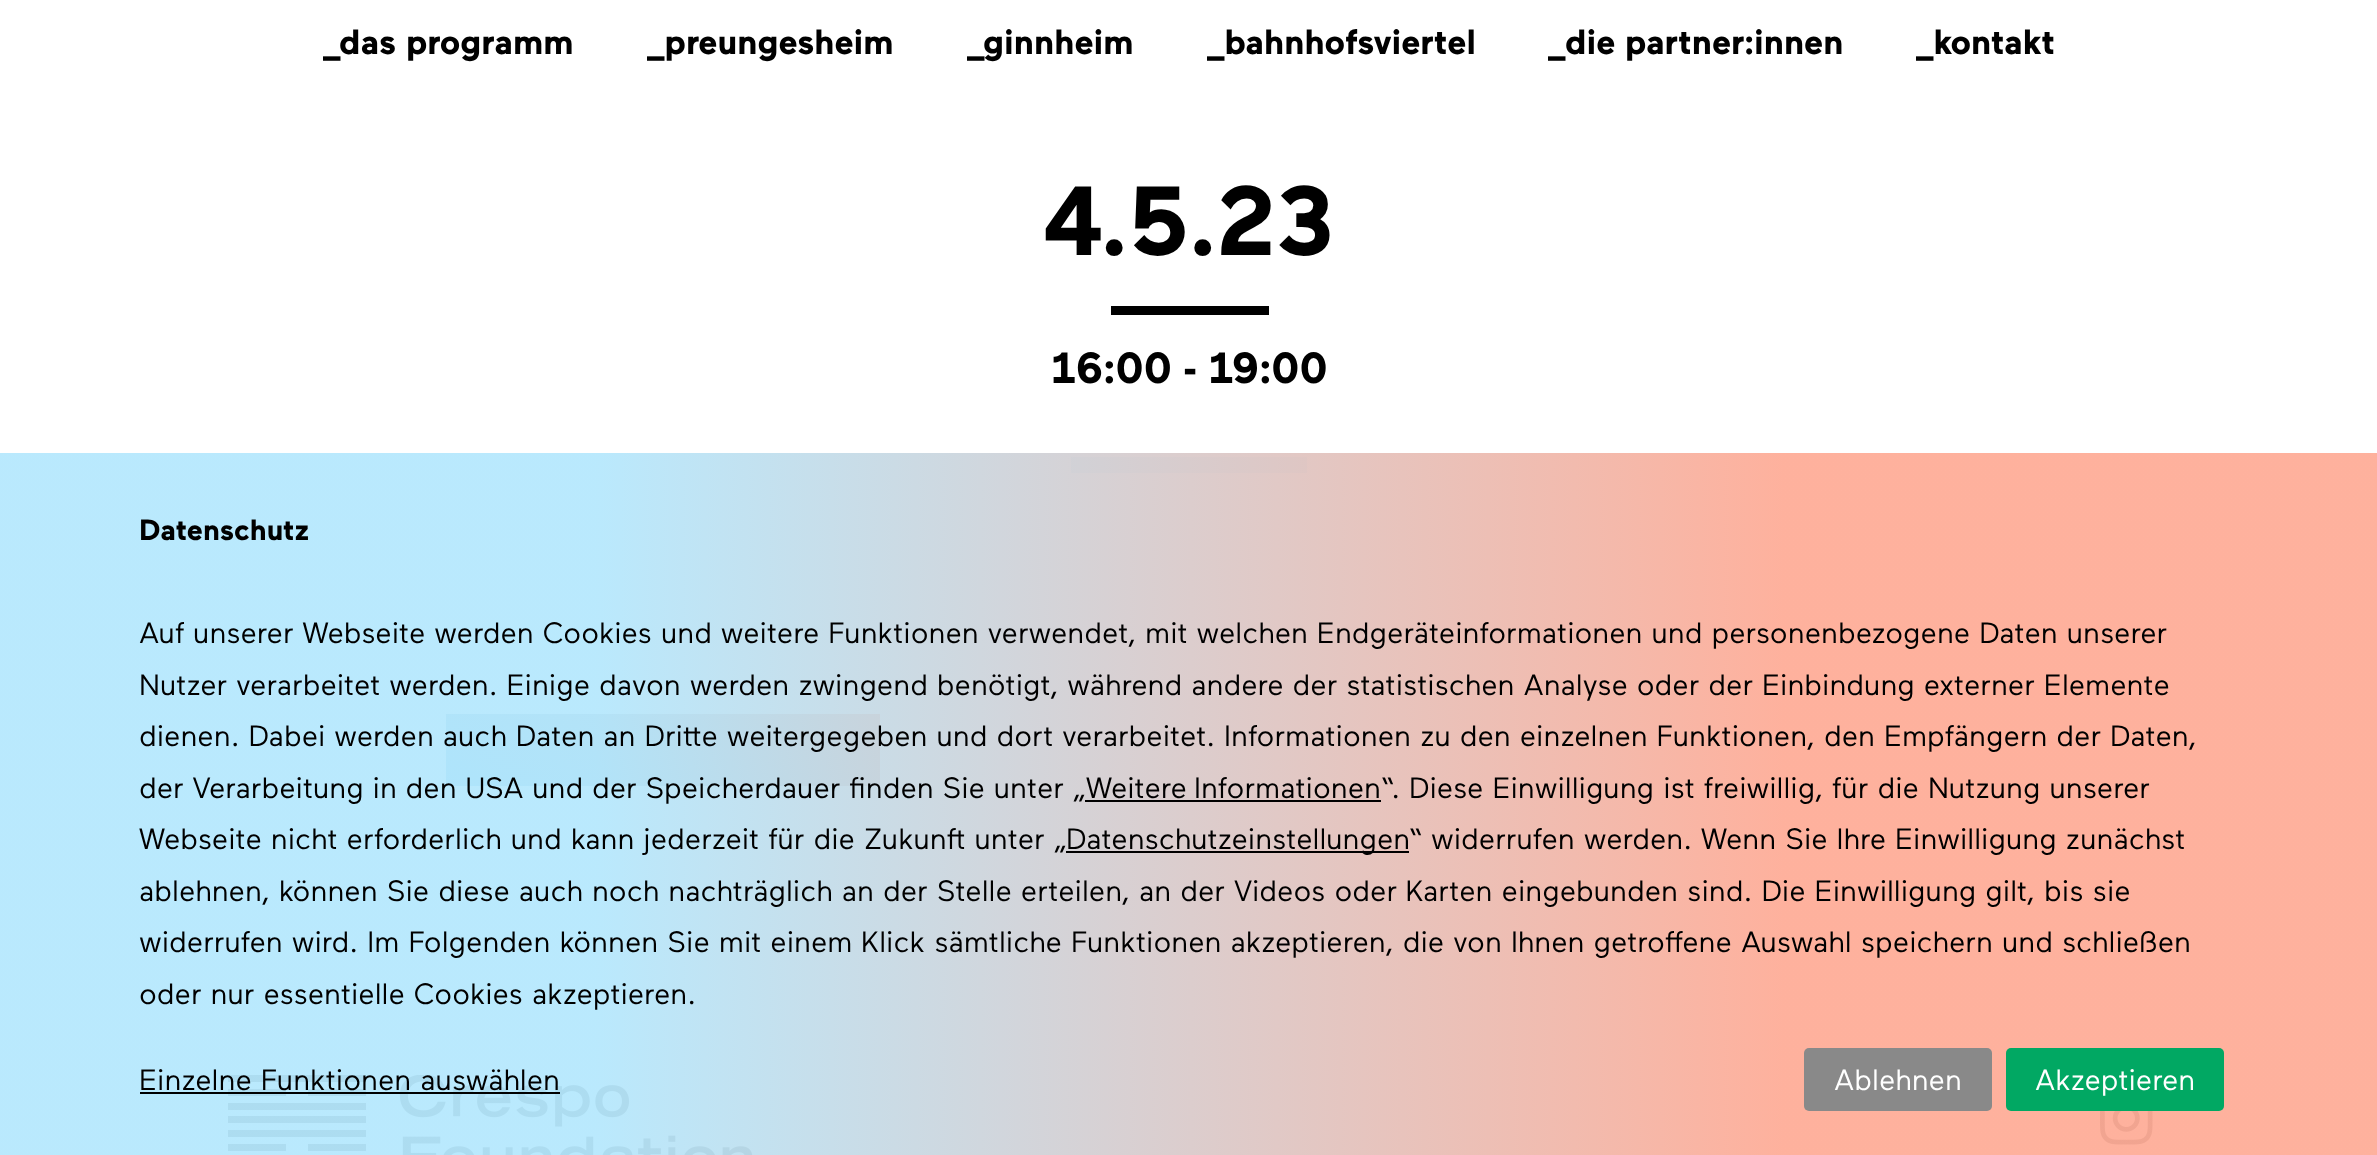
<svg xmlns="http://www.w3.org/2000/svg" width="2377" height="1155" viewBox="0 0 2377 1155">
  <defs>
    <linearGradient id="g1" gradientUnits="userSpaceOnUse" x1="751" y1="624" x2="575" y2="876"><stop offset="0" stop-color="#e55c32"/><stop offset="1" stop-color="#1a9fde"/></linearGradient>
    <linearGradient id="g2" gradientUnits="userSpaceOnUse" x1="0" y1="804" x2="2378" y2="804"><stop offset="0" stop-color="#b6e8fd" stop-opacity="0.95"/><stop offset="0.25" stop-color="#b6e8fd" stop-opacity="0.95"/><stop offset="0.75" stop-color="#fead98" stop-opacity="0.95"/><stop offset="1" stop-color="#fead98" stop-opacity="0.95"/></linearGradient>
  </defs>
  <rect width="100%" height="100%" fill="#ffffff"/>
  <text x="323" y="54" font-family="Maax" font-size="35" font-weight="bold" fill="#000000">_</text>
  <text x="339" y="54" font-family="Maax" font-size="35" font-weight="bold" fill="#000000">das programm</text>
  <text x="647" y="54" font-family="Maax" font-size="35" font-weight="bold" fill="#000000">_preungesheim</text>
  <text x="967" y="54" font-family="Maax" font-size="35" font-weight="bold" fill="#000000">_</text>
  <text x="983" y="54" font-family="Maax" font-size="35" font-weight="bold" fill="#000000">ginnheim</text>
  <text x="1207" y="54" font-family="Maax" font-size="35" font-weight="bold" fill="#000000">_bahnhofsviertel</text>
  <text x="1548" y="54" font-family="Maax" font-size="35" font-weight="bold" fill="#000000">_</text>
  <text x="1565" y="54" font-family="Maax" font-size="35" font-weight="bold" fill="#000000">die partner:innen</text>
  <text x="1916" y="54" font-family="Maax" font-size="35" font-weight="bold" fill="#000000">_kontakt</text>
  <text x="1043" y="255" font-family="Maax" font-size="98" font-weight="bold" fill="#000000">4.5.23</text>
  <rect x="1111" y="306" width="158" height="9" fill="#000000"/>
  <text x="1051" y="383" font-family="Maax" font-size="43.5" font-weight="bold" fill="#000000">16:00 - 19:00</text>
  <rect x="1071" y="457" width="236" height="16" fill="#b6e8fd"/>
  <rect x="446" y="714" width="434" height="72" fill="url(#g1)"/>
  <image x="228" y="1075" width="525" height="80" href="img1.png"/>
  <image x="2100" y="1111" width="53" height="34" href="img2.png"/>
  <rect x="0" y="453" width="2377" height="702" fill="url(#g2)"/>
  <text x="139" y="540" font-family="Maax" font-size="29.4" font-weight="bold" fill="#000000">Datenschutz</text>
  <text x="139" y="643" word-spacing="-0.1" font-family="Maax" font-size="29.4" fill="#000000">Auf unserer Webseite werden Cookies und weitere Funktionen verwendet, mit welchen Endgeräteinformationen und personenbezogene Daten unserer</text>
  <text x="139" y="695" word-spacing="-0.1" font-family="Maax" font-size="29.4" fill="#000000">Nutzer verarbeitet werden. Einige davon werden zwingend benötigt, während andere der statistischen Analyse oder der Einbindung externer Elemente</text>
  <text x="139" y="746" word-spacing="-0.1" font-family="Maax" font-size="29.4" fill="#000000">dienen. Dabei werden auch Daten an Dritte weitergegeben und dort verarbeitet. Informationen zu den einzelnen Funktionen, den Empfängern der Daten,</text>
  <text x="139" y="798" word-spacing="-0.25" font-family="Maax" font-size="29.4" fill="#000000">der Verarbeitung in den USA und der Speicherdauer finden Sie unter „</text>
  <rect x="1085" y="800" width="296" height="2" fill="#000000"/>
  <text x="1086" y="798" word-spacing="-2" font-family="Maax" font-size="29.4" fill="#000000">Weitere Informationen</text>
  <text x="1381" y="798" font-family="Maax" font-size="29.4" fill="#000000">“. Diese Einwilligung ist freiwillig, für die Nutzung unserer</text>
  <text x="139" y="849" font-family="Maax" font-size="29.4" fill="#000000">Webseite nicht erforderlich und kann jederzeit für die Zukunft unter „</text>
  <rect x="1066" y="851" width="343" height="2" fill="#000000"/>
  <text x="1066" y="849" font-family="Maax" font-size="29.4" fill="#000000">Datenschutzeinstellungen</text>
  <text x="1409" y="849" word-spacing="-0.1" font-family="Maax" font-size="29.4" fill="#000000">“ widerrufen werden. Wenn Sie Ihre Einwilligung zunächst</text>
  <text x="139" y="901" font-family="Maax" font-size="29.4" fill="#000000">ablehnen, können Sie diese auch noch nachträglich an der Stelle erteilen, an der Videos oder Karten eingebunden sind. Die Einwilligung gilt, bis sie</text>
  <text x="139" y="952" font-family="Maax" font-size="29.4" fill="#000000">widerrufen wird. Im Folgenden können Sie mit einem Klick sämtliche Funktionen akzeptieren, die von Ihnen getroffene Auswahl speichern und schließen</text>
  <text x="139" y="1004" word-spacing="-0.1" font-family="Maax" font-size="29.4" fill="#000000">oder nur essentielle Cookies akzeptieren.</text>
  <text x="139" y="1090" font-family="Maax" font-size="29.4" fill="#000000">Einzelne Funktionen auswählen</text>
  <rect x="140" y="1092" width="420" height="2" fill="#000000"/>
  <rect x="1804" y="1048" width="188" height="63" rx="5" fill="#898989"/>
  <text x="1834" y="1090" font-family="Maax" font-size="29.4" fill="#ffffff">Ablehnen</text>
  <rect x="2006" y="1048" width="218" height="63" rx="5" fill="#01a863"/>
  <text x="2035" y="1090" font-family="Maax" font-size="29.4" fill="#ffffff">Akzeptieren</text>
</svg>
